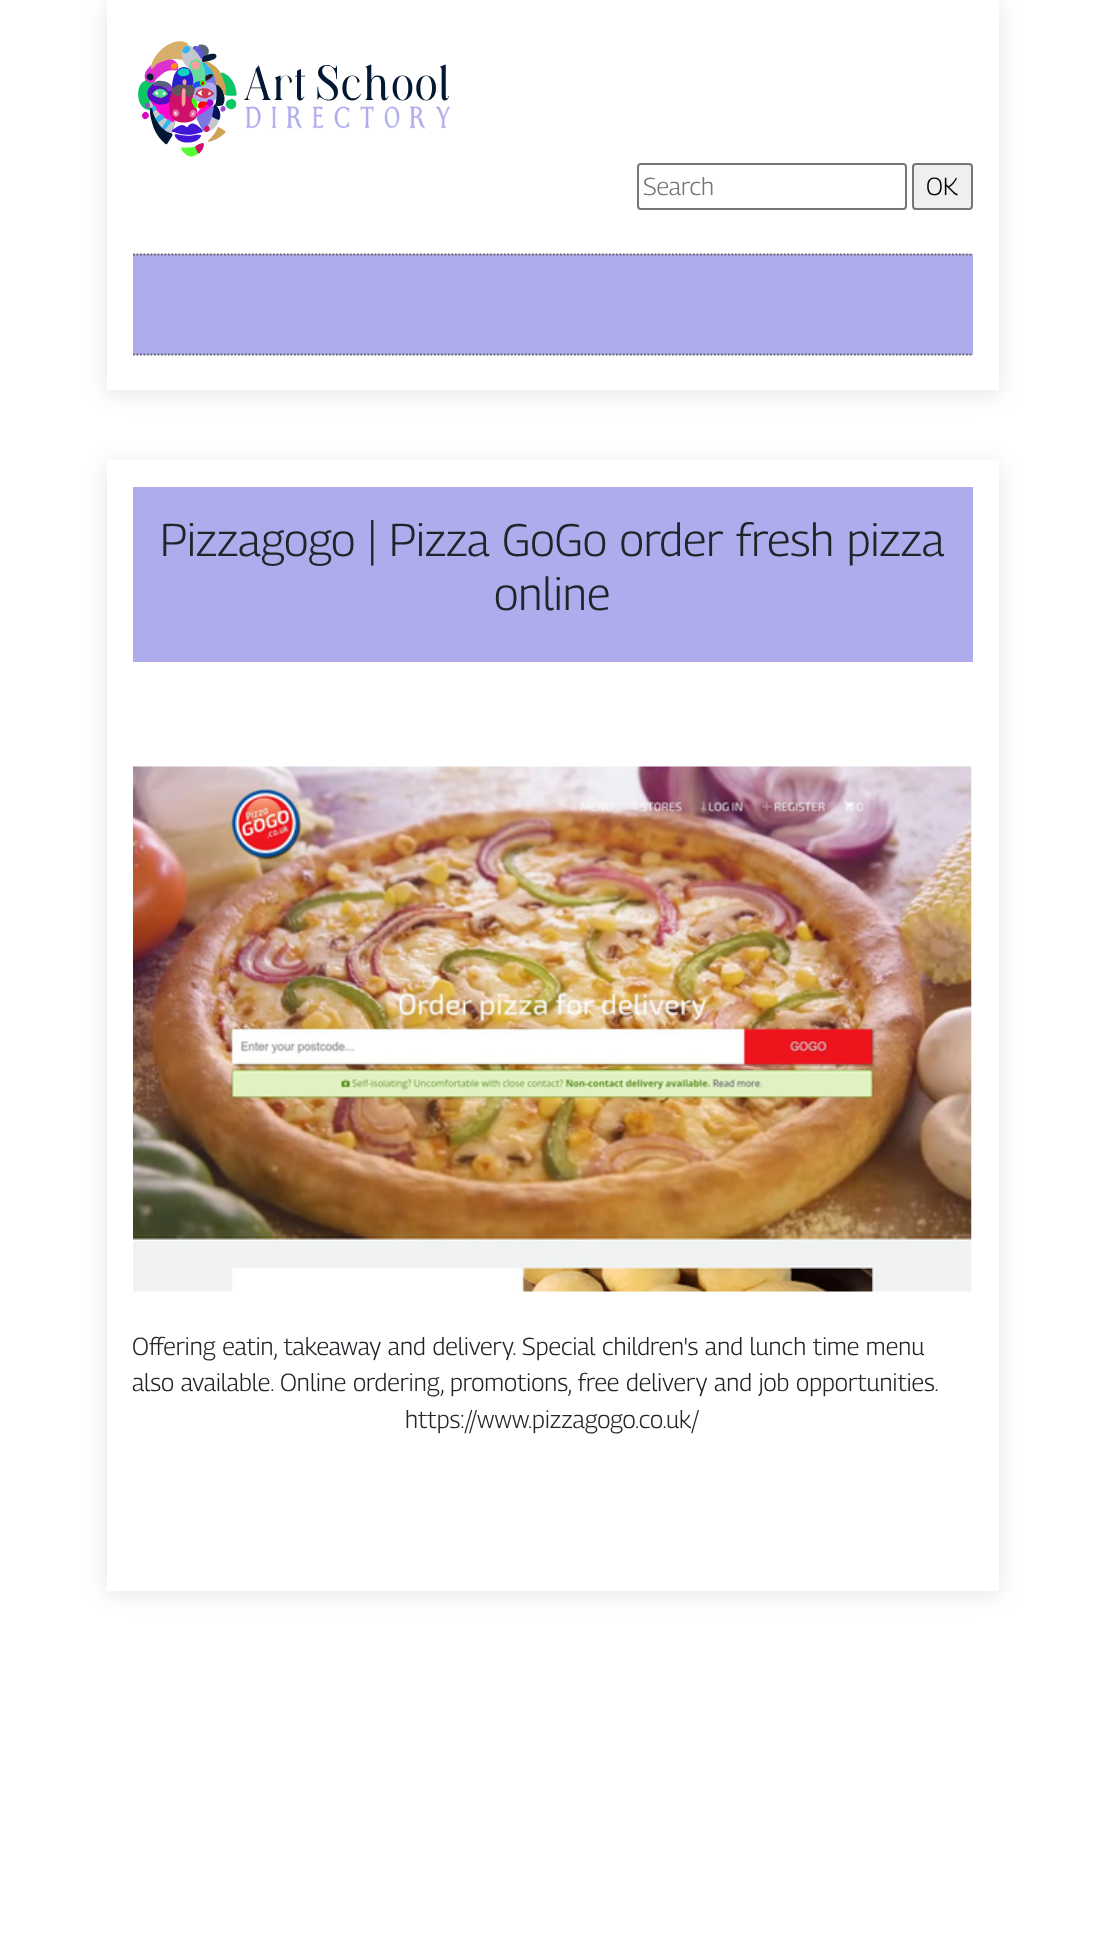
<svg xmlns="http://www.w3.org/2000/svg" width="1103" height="1949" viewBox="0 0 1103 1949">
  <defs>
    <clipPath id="clip1"><path d="M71 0H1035V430H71ZM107 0H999V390H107Z" clip-rule="evenodd"/></clipPath>
    <filter id="blur1" x="-50%" y="-200%" width="200%" height="500%"><feGaussianBlur stdDeviation="11.5"/></filter>
  </defs>
  <rect width="100%" height="100%" fill="#ffffff"/>
  <g clip-path="url(#clip1)">
    <rect x="107" y="4" width="892" height="390" fill="#000000" fill-opacity="0.1" filter="url(#blur1)"/>
  </g>
  <image x="138" y="41" width="312" height="116" href="img1.png"/>
  <rect x="638" y="164" width="268" height="45" rx="3" fill="none" stroke="#767676" stroke-width="2"/>
  <text x="643" y="195" font-family="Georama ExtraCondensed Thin" font-size="24.5" font-weight="100" fill="#757575">Search</text>
  <rect x="913" y="164" width="59" height="45" rx="3" fill="#efefef" stroke="#767676" stroke-width="2"/>
  <text x="926" y="195" font-family="Georama ExtraCondensed Thin" font-size="24.5" font-weight="100" fill="#000000">OK</text>
  <rect x="133" y="254" width="840" height="101" fill="#afaced"/>
  <path d="M133 254.5H973" fill="none" stroke="#666666" stroke-width="1.8" stroke-dasharray="1.75 1.75"/>
  <path d="M133 354.5H973" fill="none" stroke="#666666" stroke-width="1.8" stroke-dasharray="1.75 1.75"/>
  <rect x="107" y="464" width="892" height="1130" fill="#000000" fill-opacity="0.1" filter="url(#blur1)"/>
  <rect x="107" y="460" width="892" height="1131" fill="#ffffff"/>
  <rect x="133" y="487" width="840" height="175" fill="#afaced"/>
  <text x="160" y="556" font-family="Georama ExtraCondensed Thin" font-size="45.5" font-weight="100" fill="#212529">Pizzagogo | Pizza GoGo order fresh pizza</text>
  <text x="494" y="610" font-family="Georama ExtraCondensed Thin" font-size="45.5" font-weight="100" fill="#212529">online</text>
  <image x="133" y="766" width="839" height="526" href="img2.png"/>
  <text x="132" y="1355" font-family="Georama ExtraCondensed Thin" font-size="24.5" font-weight="100" fill="#212529">Offering eatin, takeaway and delivery. Special children's and lunch time menu</text>
  <text x="132" y="1391" font-family="Georama ExtraCondensed Thin" font-size="24.5" font-weight="100" fill="#212529">also available. Online ordering, promotions, free delivery and job opportunities.</text>
  <text x="405" y="1428" font-family="Georama ExtraCondensed Thin" font-size="24.5" font-weight="100" fill="#272727">https://www.pizzagogo.co.uk/</text>
</svg>
